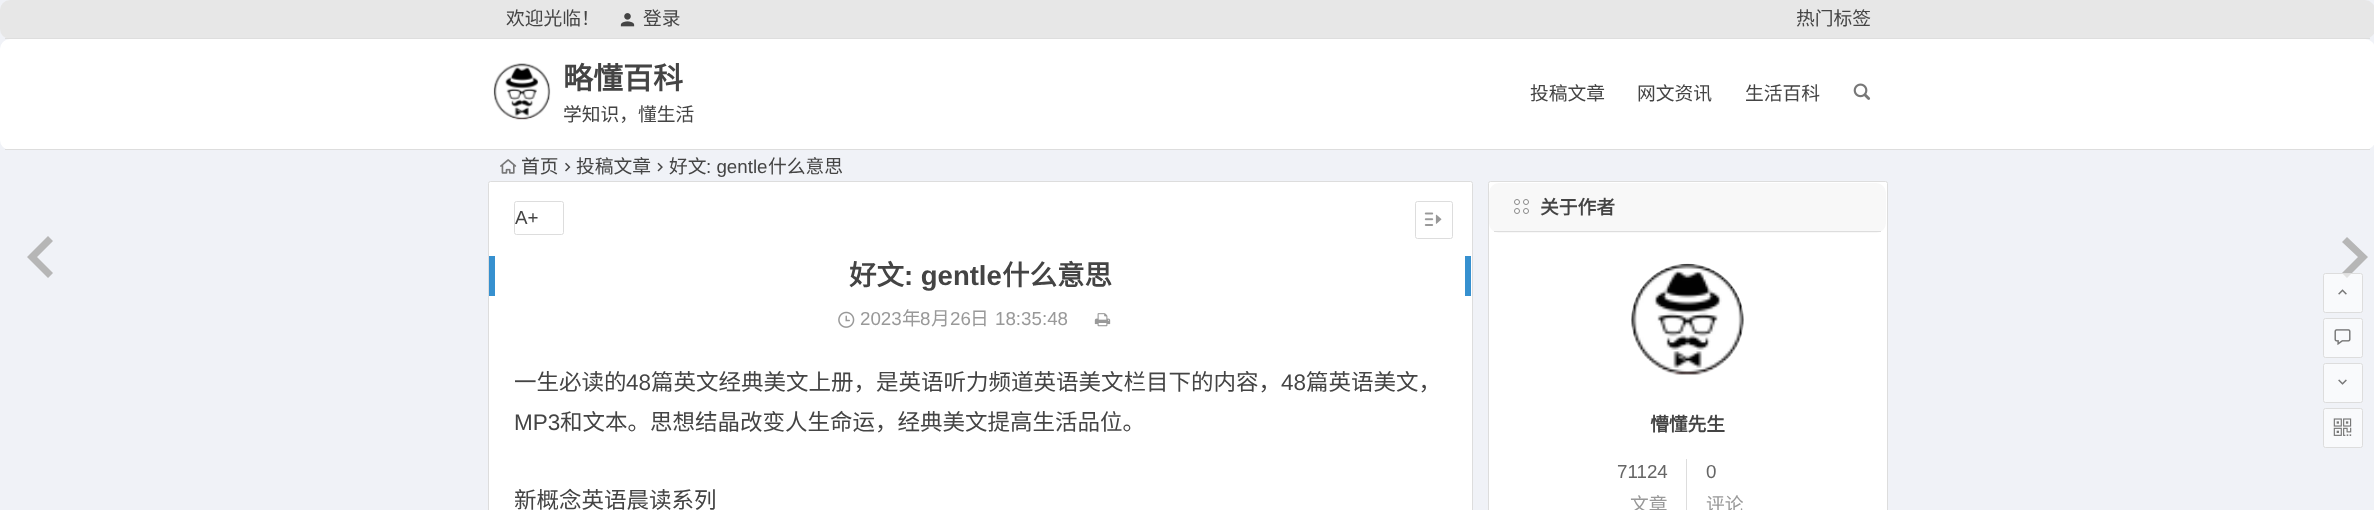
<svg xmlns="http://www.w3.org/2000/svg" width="2374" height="510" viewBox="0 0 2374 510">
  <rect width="100%" height="100%" fill="#f0f2f7"/>
  <rect x="0" y="0" width="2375" height="39" rx="10" fill="#e7e7e7"/>
  <rect x="5" y="38" width="2365" height="1" fill="#dedede"/>
  <text x="506" y="25" font-family="Noto Sans CJK SC" font-size="18.75" fill="#444444">欢迎光临！</text>
  <image x="620" y="13" width="15" height="14" href="img1.png"/>
  <text x="643" y="25" font-family="Noto Sans CJK SC" font-size="18.75" fill="#444444">登录</text>
  <text x="1796" y="25" font-family="Noto Sans CJK SC" font-size="18.75" fill="#444444">热门标签</text>
  <rect x="0" y="39" width="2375" height="111" rx="10" fill="#ffffff"/>
  <rect x="5" y="149" width="2365" height="1" fill="#dddddd"/>
  <image x="493" y="63" width="58" height="57" href="img2.png"/>
  <text x="563" y="89" font-family="Noto Sans CJK SC" font-size="30" font-weight="bold" fill="#444444">略懂百科</text>
  <text x="563" y="121" font-family="Noto Sans CJK SC" font-size="18.75" fill="#444444">学知识，懂生活</text>
  <text x="1530" y="100" font-family="Noto Sans CJK SC" font-size="18.75" fill="#444444">投稿文章</text>
  <text x="1637" y="100" font-family="Noto Sans CJK SC" font-size="18.75" fill="#444444">网文资讯</text>
  <text x="1745" y="100" font-family="Noto Sans CJK SC" font-size="18.75" fill="#444444">生活百科</text>
  <image x="1853" y="83" width="18" height="17" href="img3.png"/>
  <image x="500" y="159" width="17" height="15" href="img4.png"/>
  <text x="521" y="173" font-family="Noto Sans CJK SC" font-size="18.75" fill="#444444">首页</text>
  <image x="565" y="162" width="6" height="10" href="img5.png"/>
  <text x="576" y="173" font-family="Noto Sans CJK SC" font-size="18.75" fill="#444444">投稿文章</text>
  <image x="657" y="162" width="6" height="10" href="img6.png"/>
  <text x="669" y="173" font-family="Noto Sans CJK SC" font-size="18.75" fill="#444444">好文</text>
  <text x="706" y="173" font-family="Liberation Sans" font-size="18.75" fill="#444444">: gentle</text>
  <text x="768" y="173" font-family="Noto Sans CJK SC" font-size="18.75" fill="#444444">什么意思</text>
  <rect x="488.5" y="181.5" width="984" height="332" rx="2" fill="#ffffff" stroke="#dddddd"/>
  <rect x="514.5" y="201.5" width="49" height="33" rx="2" fill="none" stroke="#dddddd"/>
  <text x="515" y="224" font-family="Liberation Sans" font-size="18.75" fill="#444444">A+</text>
  <rect x="1415.5" y="201.5" width="37" height="37" rx="2" fill="none" stroke="#dddddd"/>
  <image x="1424" y="212" width="18" height="14" href="img7.png"/>
  <image x="838" y="311" width="17" height="17" href="img8.png"/>
  <text x="860" y="325" font-family="Liberation Sans" font-size="18.75" fill="#999999">2023</text>
  <text x="902" y="325" font-family="Noto Sans CJK SC" font-size="18.75" fill="#999999">年</text>
  <text x="920" y="325" font-family="Liberation Sans" font-size="18.75" fill="#999999">8</text>
  <text x="931" y="325" font-family="Noto Sans CJK SC" font-size="18.75" fill="#999999">月</text>
  <text x="950" y="325" font-family="Liberation Sans" font-size="18.75" fill="#999999">26</text>
  <text x="970" y="325" font-family="Noto Sans CJK SC" font-size="18.75" fill="#999999">日</text>
  <text x="995" y="325" font-family="Liberation Sans" font-size="18.75" fill="#999999">18:35:48</text>
  <image x="1094" y="313" width="17" height="14" href="img9.png"/>
  <text x="514" y="390" font-family="Noto Sans CJK SC" font-size="22.5" fill="#444444">一生必读的</text>
  <text x="626" y="390" font-family="Liberation Sans" font-size="22.5" fill="#444444">48</text>
  <text x="651" y="390" font-family="Noto Sans CJK SC" font-size="22.5" fill="#444444">篇英文经典美文上册，是英语听力频道英语美文栏目下的内容，</text>
  <text x="1281" y="390" font-family="Liberation Sans" font-size="22.5" fill="#444444">48</text>
  <text x="1306" y="390" font-family="Noto Sans CJK SC" font-size="22.5" fill="#444444">篇英语美文，</text>
  <text x="514" y="430" font-family="Liberation Sans" font-size="22.5" fill="#444444">MP3</text>
  <text x="560" y="430" font-family="Noto Sans CJK SC" font-size="22.5" fill="#444444">和文本。思想结晶改变人生命运，经典美文提高生活品位。</text>
  <text x="514" y="508" font-family="Noto Sans CJK SC" font-size="22.5" fill="#444444">新概念英语晨读系列</text>
  <rect x="1465" y="256" width="6" height="40" fill="#3690cf"/>
  <rect x="489" y="256" width="6" height="40" fill="#3690cf"/>
  <text x="849" y="285" font-family="Noto Sans CJK SC" font-size="27.5" font-weight="bold" fill="#444444">好文</text>
  <text x="904" y="285" font-family="Liberation Sans" font-size="27.5" font-weight="bold" fill="#444444">: gentle</text>
  <text x="1002" y="285" font-family="Noto Sans CJK SC" font-size="27.5" font-weight="bold" fill="#444444">什么意思</text>
  <path d="M53 273L37 257L53 241L48 236L27 257L48 278Z" fill="#b6b6b6"/>
  <path d="M2342 273L2358 257L2342 242L2347 237L2368 257L2347 278Z" fill="#b6b6b6"/>
  <rect x="1488.5" y="181.5" width="399" height="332" rx="2" fill="#ffffff" stroke="#dddddd"/>
  <rect x="1489" y="183" width="397" height="50" rx="10" fill="#f8f8f8"/>
  <rect x="1494" y="231" width="387" height="1" fill="#dddddd"/>
  <circle cx="1517" cy="202" r="2.5" fill="#ffffff" stroke="#888888"/>
  <circle cx="1526" cy="202" r="2.5" fill="#ffffff" stroke="#888888"/>
  <circle cx="1517" cy="211" r="2.5" fill="#ffffff" stroke="#888888"/>
  <circle cx="1526" cy="211" r="2.5" fill="#ffffff" stroke="#888888"/>
  <text x="1540" y="214" font-family="Noto Sans CJK SC" font-size="18.75" font-weight="bold" fill="#444444">关于作者</text>
  <image x="1631" y="263" width="113" height="112" href="img10.png"/>
  <text x="1650" y="431" font-family="Noto Sans CJK SC" font-size="18.75" font-weight="bold" fill="#444444">懵懂先生</text>
  <rect x="1686" y="459" width="1" height="51" fill="#dddddd"/>
  <text x="1617" y="478" font-family="Liberation Sans" font-size="18.75" fill="#666666">71124</text>
  <text x="1630" y="511" font-family="Noto Sans CJK SC" font-size="18.75" fill="#999999">文章</text>
  <text x="1706" y="478" font-family="Liberation Sans" font-size="18.75" fill="#666666">0</text>
  <text x="1706" y="511" font-family="Noto Sans CJK SC" font-size="18.75" fill="#999999">评论</text>
  <rect x="2323.5" y="273.5" width="39" height="39" rx="2" fill="#ffffff" fill-opacity="0.6" stroke="#dddddd"/>
  <image x="2338" y="289" width="9" height="6" href="img11.png"/>
  <rect x="2323.5" y="318.5" width="39" height="39" rx="2" fill="#ffffff" fill-opacity="0.6" stroke="#dddddd"/>
  <image x="2334" y="329" width="17" height="16" href="img12.png"/>
  <rect x="2323.5" y="363.5" width="39" height="39" rx="2" fill="#ffffff" fill-opacity="0.6" stroke="#dddddd"/>
  <image x="2338" y="379" width="9" height="6" href="img13.png"/>
  <rect x="2323.5" y="408.5" width="39" height="39" rx="2" fill="#ffffff" fill-opacity="0.6" stroke="#dddddd"/>
  <image x="2333" y="418" width="19" height="18" href="img14.png"/>
</svg>
